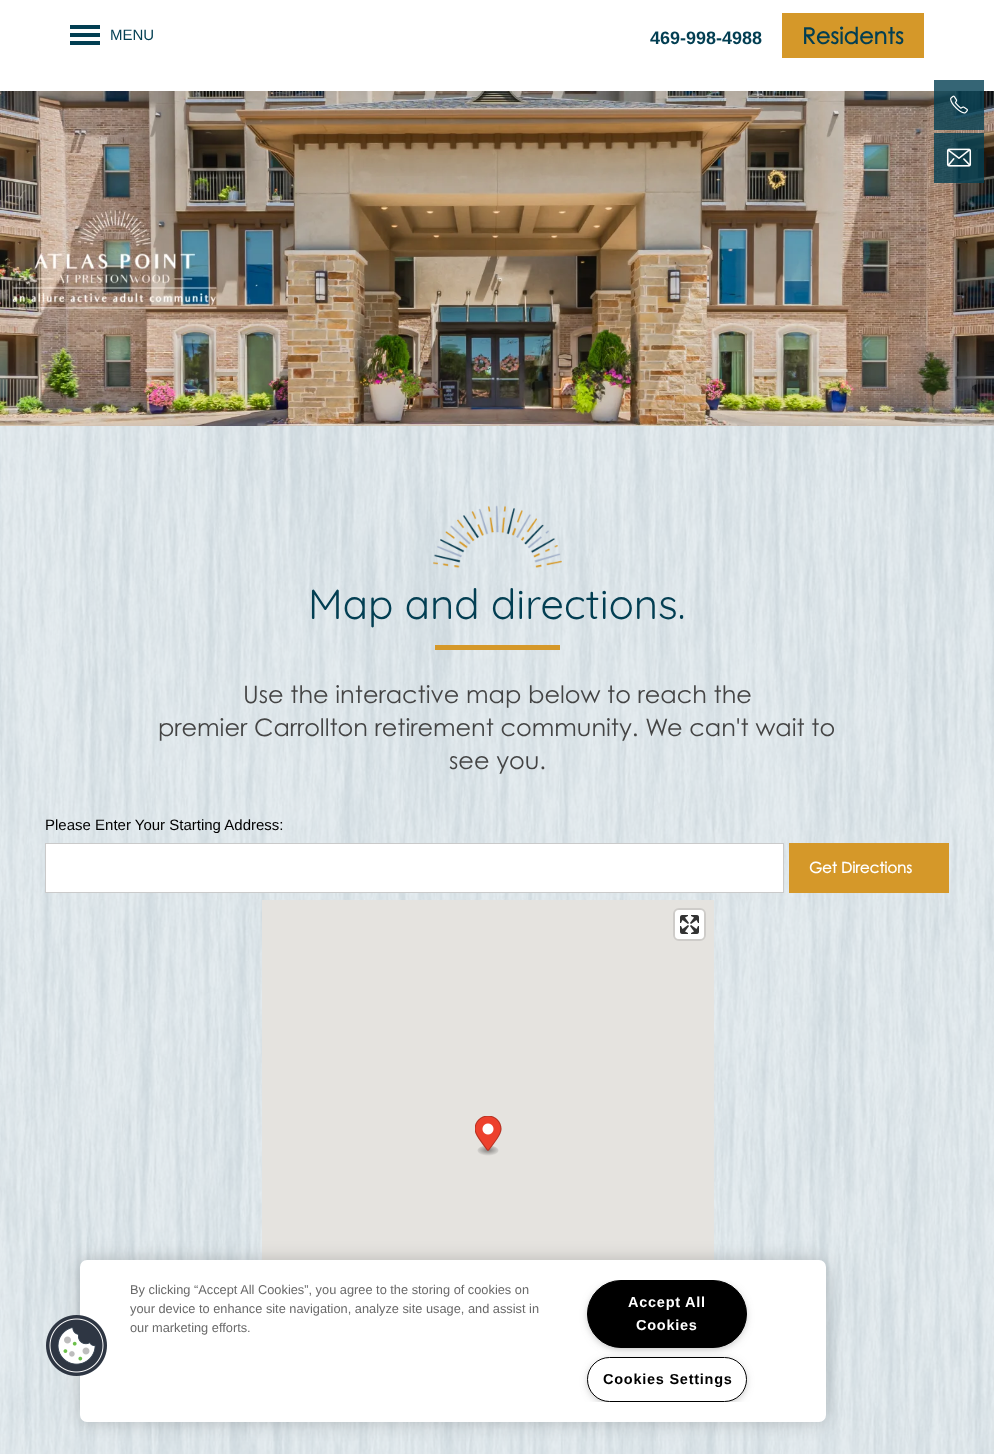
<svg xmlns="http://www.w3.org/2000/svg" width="994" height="1454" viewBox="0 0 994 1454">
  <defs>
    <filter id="blur1" x="-50%" y="-200%" width="200%" height="500%"><feGaussianBlur stdDeviation="9"/></filter>
    <clipPath id="clip1"><rect x="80" y="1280" width="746" height="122"/></clipPath>
    <filter id="blur2" x="-50%" y="-200%" width="200%" height="500%"><feGaussianBlur stdDeviation="5"/></filter>
  </defs>
  <rect width="100%" height="100%" fill="#ffffff"/>
  <rect x="70" y="25" width="30" height="4" fill="#023e52"/>
  <rect x="70" y="33" width="30" height="4" fill="#023e52"/>
  <rect x="70" y="41" width="30" height="4" fill="#023e52"/>
  <text x="110" y="40" font-family="Liberation Sans" font-size="15" fill="#023e52">MENU</text>
  <text x="650" y="44" font-family="Liberation Sans" font-size="18" font-weight="bold" fill="#023e52">469-998-4988</text>
  <rect x="782" y="13" width="142" height="45" fill="#d59829"/>
  <text x="802" y="44" font-family="Century Gothic" font-size="22.5" font-weight="bold" fill="#023e52">Residents</text>
  <image x="0" y="91" width="994" height="335" href="img3.png"/>
  <rect x="934" y="80" width="50" height="50" fill="#023e52" fill-opacity="0.8"/>
  <image x="950" y="95" width="18" height="19" href="img1.png"/>
  <rect x="934" y="133" width="50" height="50" fill="#023e52" fill-opacity="0.8"/>
  <image x="946" y="148" width="26" height="19" href="img2.png"/>
  <image x="0" y="426" width="994" height="1028" href="img4.png"/>
  <image x="433" y="505" width="129" height="63" href="img5.png"/>
  <text x="308" y="619" font-family="Quicksand" font-size="42" fill="#023e52">Map and directions.</text>
  <rect x="435" y="645" width="125" height="5" fill="#d59829"/>
  <text x="243" y="703" font-family="Century Gothic" font-size="24" fill="#444444">Use the interactive map below to reach the</text>
  <text x="158" y="736" font-family="Century Gothic" font-size="24" fill="#444444">premier Carrollton retirement community. We can't wait to</text>
  <text x="449" y="769" font-family="Century Gothic" font-size="24" fill="#444444">see you.</text>
  <text x="45" y="830" font-family="Liberation Sans" font-size="15" fill="#000000">Please Enter Your Starting Address:</text>
  <rect x="45.5" y="843.5" width="738" height="49" fill="#ffffff" stroke="#cacaca"/>
  <rect x="789" y="843" width="160" height="50" fill="#d59829"/>
  <text x="809" y="873" font-family="Century Gothic" font-size="15" font-weight="bold" fill="#ffffff">Get Directions</text>
  <rect x="262" y="900" width="452" height="360" fill="#e5e3df"/>
  <rect x="674" y="909" width="31" height="31" rx="5" fill="none" stroke="#ceccc9" stroke-width="2"/>
  <rect x="675" y="910" width="29" height="29" rx="4" fill="#ffffff"/>
  <image x="680" y="915" width="19" height="19" href="img6.png"/>
  <image x="475" y="1116" width="27" height="40" href="img7.png"/>
  <rect x="80" y="1260" width="746" height="162" rx="7" fill="#000000" fill-opacity="0.2" filter="url(#blur1)"/>
  <rect x="80" y="1260" width="746" height="162" rx="7" fill="#ffffff"/>
  <image x="46" y="1315" width="61" height="61" href="img8.png"/>
  <text x="130" y="1294" font-family="Liberation Sans" font-size="12.8" fill="#696969">By clicking “Accept All Cookies”, you agree to the storing of cookies on</text>
  <text x="130" y="1313" font-family="Liberation Sans" font-size="12.8" fill="#696969">your device to enhance site navigation, analyze site usage, and assist in</text>
  <text x="130" y="1332" font-family="Liberation Sans" font-size="12.8" fill="#696969">our marketing efforts.</text>
  <g clip-path="url(#clip1)">
    <rect x="590" y="1285" width="154" height="62" rx="31" fill="#999999" filter="url(#blur2)"/>
  </g>
  <rect x="587.5" y="1280.5" width="159" height="67" rx="33.5" fill="#000000" stroke="#000000"/>
  <text x="628" y="1307" font-family="Liberation Sans" font-size="14.5" font-weight="bold" letter-spacing="0.75" fill="#ffffff">Accept All</text>
  <text x="636" y="1330" font-family="Liberation Sans" font-size="14.5" font-weight="bold" letter-spacing="0.75" fill="#ffffff">Cookies</text>
  <g clip-path="url(#clip1)">
    <rect x="590" y="1362" width="154" height="39" rx="19.5" fill="#999999" filter="url(#blur2)"/>
  </g>
  <rect x="587.5" y="1357.5" width="159" height="44" rx="22" fill="#ffffff" stroke="#000000"/>
  <text x="603" y="1384" font-family="Liberation Sans" font-size="14.5" font-weight="bold" letter-spacing="0.75" fill="#000000">Cookies Settings</text>
</svg>
